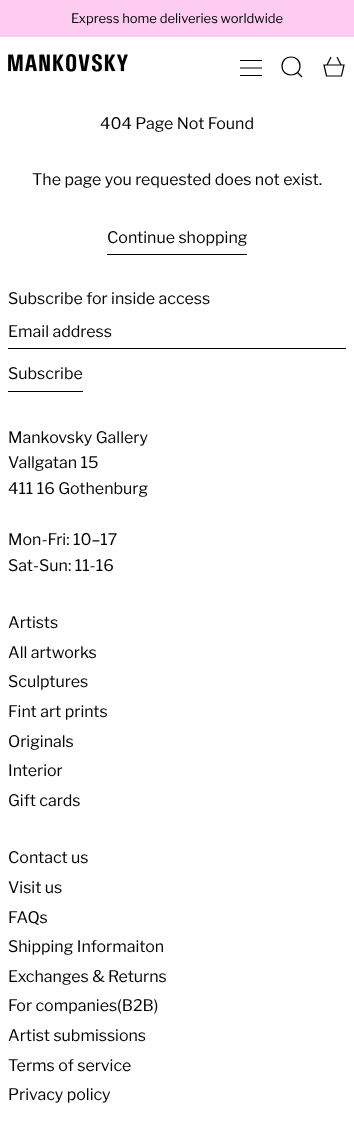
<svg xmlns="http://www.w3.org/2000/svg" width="354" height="1142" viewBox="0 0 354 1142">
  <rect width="100%" height="100%" fill="#ffffff"/>
  <rect x="0" y="0" width="354" height="37" fill="#ffccf1"/>
  <text x="71" y="23" font-family="Libre Franklin" font-size="13" fill="#000000">Express home deliveries worldwide</text>
  <image x="8" y="54" width="120" height="18" href="img1.png"/>
  <path d="M240 60.5H262M240 68H262M240 75.5H262M282 66C282 78 300 78 300 66C300 54 282 54 282 66ZM297.5 72.5L302 77" fill="none" stroke="#000000" stroke-width="1.2"/>
  <path d="M326.5 76L324 65H344L341.5 76ZM327 65L331 57M341 65L337 57" fill="none" stroke="#000000" stroke-width="1.2"/>
  <text x="100" y="129" font-family="Libre Franklin" font-size="16" fill="#000000">404 Page Not Found</text>
  <text x="32" y="185" font-family="Libre Franklin" font-size="16" fill="#000000">The page you requested does not exist.</text>
  <rect x="107" y="254" width="140" height="1" fill="#000000"/>
  <text x="107" y="243" font-family="Libre Franklin" font-size="16" fill="#000000">Continue shopping</text>
  <text x="8" y="304" font-family="Libre Franklin" font-size="16" fill="#000000">Subscribe for inside access</text>
  <rect x="8" y="348" width="338" height="1" fill="#000000"/>
  <text x="8" y="337" font-family="Libre Franklin" font-size="16" fill="#000000">Email address</text>
  <rect x="8" y="391" width="75" height="1" fill="#000000"/>
  <text x="8" y="379" font-family="Libre Franklin" font-size="16" fill="#000000">Subscribe</text>
  <text x="8" y="443" font-family="Libre Franklin" font-size="16" fill="#000000">Mankovsky Gallery</text>
  <text x="8" y="468" font-family="Libre Franklin" font-size="16" fill="#000000">Vallgatan 15</text>
  <text x="8" y="494" font-family="Libre Franklin" font-size="16" fill="#000000">411 16 Gothenburg</text>
  <text x="8" y="545" font-family="Libre Franklin" font-size="16" fill="#000000">Mon-Fri: 10–17</text>
  <text x="8" y="571" font-family="Libre Franklin" font-size="16" fill="#000000">Sat-Sun: 11-16</text>
  <text x="8" y="628" font-family="Libre Franklin" font-size="16" fill="#000000">Artists</text>
  <text x="8" y="658" font-family="Libre Franklin" font-size="16" fill="#000000">All artworks</text>
  <text x="8" y="687" font-family="Libre Franklin" font-size="16" fill="#000000">Sculptures</text>
  <text x="8" y="717" font-family="Libre Franklin" font-size="16" fill="#000000">Fint art prints</text>
  <text x="8" y="747" font-family="Libre Franklin" font-size="16" fill="#000000">Originals</text>
  <text x="8" y="776" font-family="Libre Franklin" font-size="16" fill="#000000">Interior</text>
  <text x="8" y="806" font-family="Libre Franklin" font-size="16" fill="#000000">Gift cards</text>
  <text x="8" y="863" font-family="Libre Franklin" font-size="16" fill="#000000">Contact us</text>
  <text x="8" y="893" font-family="Libre Franklin" font-size="16" fill="#000000">Visit us</text>
  <text x="8" y="923" font-family="Libre Franklin" font-size="16" fill="#000000">FAQs</text>
  <text x="8" y="952" font-family="Libre Franklin" font-size="16" fill="#000000">Shipping Informaiton</text>
  <text x="8" y="982" font-family="Libre Franklin" font-size="16" fill="#000000">Exchanges &amp; Returns</text>
  <text x="8" y="1011" font-family="Libre Franklin" font-size="16" fill="#000000">For companies(B2B)</text>
  <text x="8" y="1041" font-family="Libre Franklin" font-size="16" fill="#000000">Artist submissions</text>
  <text x="8" y="1071" font-family="Libre Franklin" font-size="16" fill="#000000">Terms of service</text>
  <text x="8" y="1100" font-family="Libre Franklin" font-size="16" fill="#000000">Privacy policy</text>
</svg>
